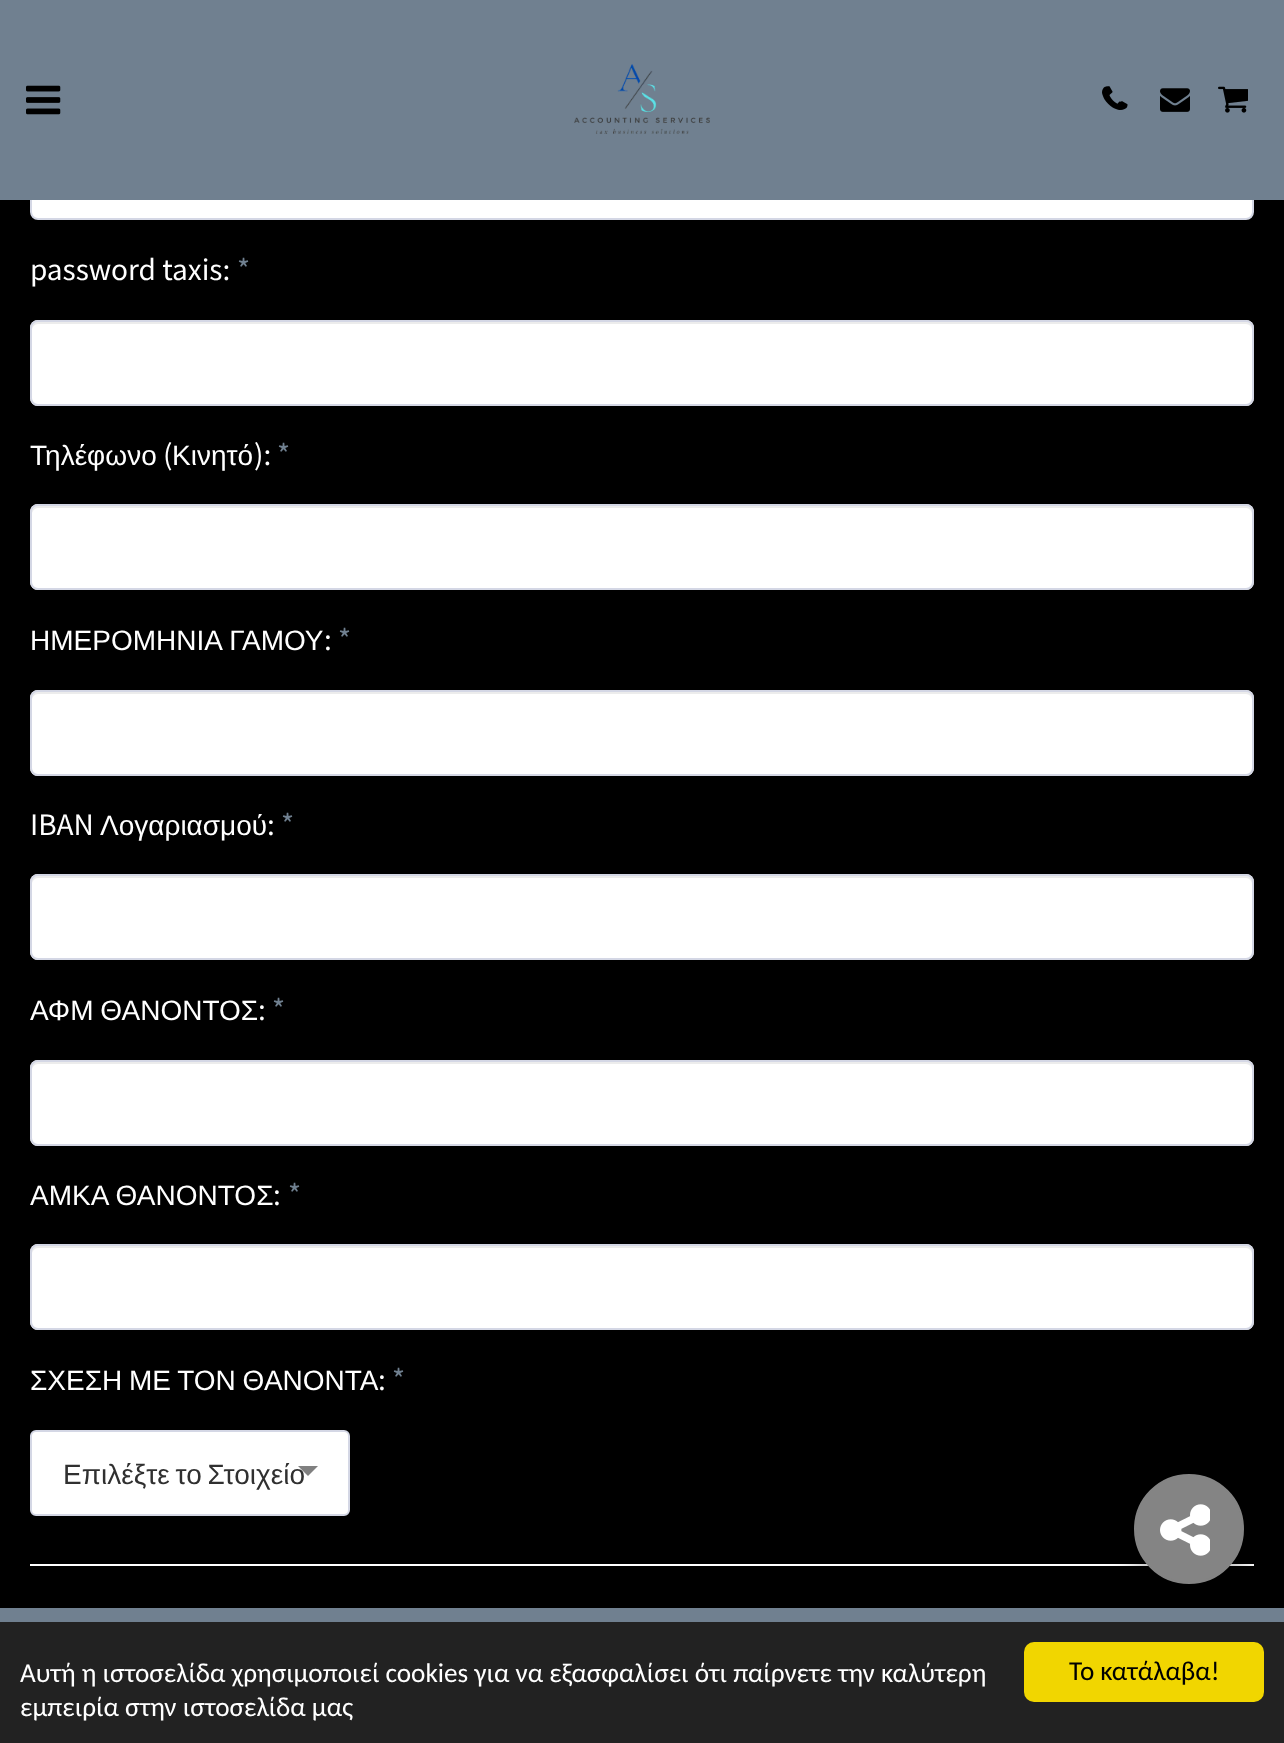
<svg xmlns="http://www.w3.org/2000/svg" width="1284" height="1743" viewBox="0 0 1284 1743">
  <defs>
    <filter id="blur1" x="-50%" y="-200%" width="200%" height="500%"><feGaussianBlur stdDeviation="15"/></filter>
  </defs>
  <rect width="100%" height="100%" fill="#000000"/>
  <rect x="31" y="135" width="1222" height="84" rx="7" fill="#ffffff" stroke="#d4d7e5" stroke-width="2"/>
  <rect x="0" y="0" width="1284" height="200" fill="#708090"/>
  <image x="26" y="85" width="35" height="30" href="img1.png"/>
  <image x="574" y="64" width="136" height="70" href="img2.png"/>
  <image x="1106" y="86" width="22" height="24" href="img3.png"/>
  <image x="1102" y="86" width="21" height="24" href="img4.png"/>
  <image x="1160" y="88" width="30" height="24" href="img5.png"/>
  <image x="1218" y="86" width="30" height="27" href="img6.png"/>
  <text x="30" y="280" font-family="Noto Sans JP" font-size="28" fill="#ffffff">password taxis:</text>
  <text x="237" y="280" font-family="Noto Sans JP" font-size="28" fill="#708090">*</text>
  <rect x="30" y="320" width="1224" height="86" rx="8" fill="#ffffff"/>
  <path d="M38 324H1246C1249 324 1252 327 1252 330V328C1252 325 1249 322 1246 322H38C35 322 32 325 32 328V330C32 327 35 324 38 324Z" fill="#ececec"/>
  <rect x="31" y="321" width="1222" height="84" rx="7" fill="none" stroke="#d4d7e5" stroke-width="2"/>
  <text x="30" y="465" font-family="Liberation Sans" font-size="28" fill="#ffffff">Τηλέφωνο</text>
  <text x="163" y="465" font-family="Noto Sans JP" font-size="28" fill="#ffffff">(</text>
  <text x="172" y="465" font-family="Liberation Sans" font-size="28" fill="#ffffff">Κινητό</text>
  <text x="254" y="465" font-family="Noto Sans JP" font-size="28" fill="#ffffff">):</text>
  <text x="277" y="465" font-family="Noto Sans JP" font-size="28" fill="#708090">*</text>
  <rect x="30" y="504" width="1224" height="86" rx="8" fill="#ffffff"/>
  <path d="M38 508H1246C1249 508 1252 511 1252 514V512C1252 509 1249 506 1246 506H38C35 506 32 509 32 512V514C32 511 35 508 38 508Z" fill="#ececec"/>
  <rect x="31" y="505" width="1222" height="84" rx="7" fill="none" stroke="#d4d7e5" stroke-width="2"/>
  <text x="30" y="650" font-family="Liberation Sans" font-size="28" fill="#ffffff">ΗΜΕΡΟΜΗΝΙΑ ΓΑΜΟΥ</text>
  <text x="324" y="650" font-family="Noto Sans JP" font-size="28" fill="#ffffff">:</text>
  <text x="338" y="650" font-family="Noto Sans JP" font-size="28" fill="#708090">*</text>
  <rect x="30" y="690" width="1224" height="86" rx="8" fill="#ffffff"/>
  <path d="M38 694H1246C1249 694 1252 697 1252 700V698C1252 695 1249 692 1246 692H38C35 692 32 695 32 698V700C32 697 35 694 38 694Z" fill="#ececec"/>
  <rect x="31" y="691" width="1222" height="84" rx="7" fill="none" stroke="#d4d7e5" stroke-width="2"/>
  <text x="30" y="835" font-family="Noto Sans JP" font-size="28" fill="#ffffff">IBAN</text>
  <text x="100" y="835" font-family="Liberation Sans" font-size="28" fill="#ffffff">Λογαριασμού</text>
  <text x="267" y="835" font-family="Noto Sans JP" font-size="28" fill="#ffffff">:</text>
  <text x="281" y="835" font-family="Noto Sans JP" font-size="28" fill="#708090">*</text>
  <rect x="30" y="874" width="1224" height="86" rx="8" fill="#ffffff"/>
  <path d="M38 878H1246C1249 878 1252 881 1252 884V882C1252 879 1249 876 1246 876H38C35 876 32 879 32 882V884C32 881 35 878 38 878Z" fill="#ececec"/>
  <rect x="31" y="875" width="1222" height="84" rx="7" fill="none" stroke="#d4d7e5" stroke-width="2"/>
  <text x="30" y="1020" word-spacing="-1" font-family="Liberation Sans" font-size="28" fill="#ffffff">ΑΦΜ ΘΑΝΟΝΤΟΣ</text>
  <text x="258" y="1020" font-family="Noto Sans JP" font-size="28" fill="#ffffff">:</text>
  <text x="272" y="1020" font-family="Noto Sans JP" font-size="28" fill="#708090">*</text>
  <rect x="30" y="1060" width="1224" height="86" rx="8" fill="#ffffff"/>
  <path d="M38 1064H1246C1249 1064 1252 1067 1252 1070V1068C1252 1065 1249 1062 1246 1062H38C35 1062 32 1065 32 1068V1070C32 1067 35 1064 38 1064Z" fill="#ececec"/>
  <rect x="31" y="1061" width="1222" height="84" rx="7" fill="none" stroke="#d4d7e5" stroke-width="2"/>
  <text x="30" y="1205" font-family="Liberation Sans" font-size="28" fill="#ffffff">ΑΜΚΑ ΘΑΝΟΝΤΟΣ</text>
  <text x="273" y="1205" font-family="Noto Sans JP" font-size="28" fill="#ffffff">:</text>
  <text x="288" y="1205" font-family="Noto Sans JP" font-size="28" fill="#708090">*</text>
  <rect x="30" y="1244" width="1224" height="86" rx="8" fill="#ffffff"/>
  <path d="M38 1248H1246C1249 1248 1252 1251 1252 1254V1252C1252 1249 1249 1246 1246 1246H38C35 1246 32 1249 32 1252V1254C32 1251 35 1248 38 1248Z" fill="#ececec"/>
  <rect x="31" y="1245" width="1222" height="84" rx="7" fill="none" stroke="#d4d7e5" stroke-width="2"/>
  <text x="30" y="1390" word-spacing="-1" font-family="Liberation Sans" font-size="28" fill="#ffffff">ΣΧΕΣΗ ΜΕ ΤΟΝ ΘΑΝΟΝΤΑ</text>
  <text x="378" y="1390" font-family="Noto Sans JP" font-size="28" fill="#ffffff">:</text>
  <text x="392" y="1390" font-family="Noto Sans JP" font-size="28" fill="#708090">*</text>
  <rect x="31" y="1431" width="318" height="84" rx="5" fill="#ffffff" stroke="#d4d7e5" stroke-width="2"/>
  <text x="63" y="1484" word-spacing="-2" font-family="Liberation Sans" font-size="28" fill="#303030">Επιλέξτε το Στοιχείο</text>
  <path d="M298 1466H318L308 1476Z" fill="#808080"/>
  <rect x="30" y="1564" width="1224" height="2" fill="#ffffff"/>
  <rect x="1134" y="1484" width="110" height="110" rx="55" fill="#000000" fill-opacity="0.35" filter="url(#blur1)"/>
  <circle cx="1189" cy="1529" r="54" fill="#848484" stroke="#848484" stroke-width="2"/>
  <image x="1160" y="1504" width="50" height="52" href="img7.png"/>
  <rect x="0" y="1608" width="1284" height="14" fill="#708090"/>
  <rect x="0" y="1622" width="1284" height="121" fill="#222222"/>
  <text x="20" y="1682" font-family="Carlito" font-size="27.2" fill="#ffffff">Αυτή η ιστοσελίδα χρησιμοποιεί cookies για να εξασφαλίσει ότι παίρνετε την καλύτερη</text>
  <text x="20" y="1716" font-family="Carlito" font-size="27.2" fill="#ffffff">εμπειρία στην ιστοσελίδα μας</text>
  <rect x="1024" y="1642" width="240" height="60" rx="10" fill="#f1d600"/>
  <text x="1069" y="1680" font-family="Carlito" font-size="27.2" fill="#000000">Το κατάλαβα!</text>
</svg>
